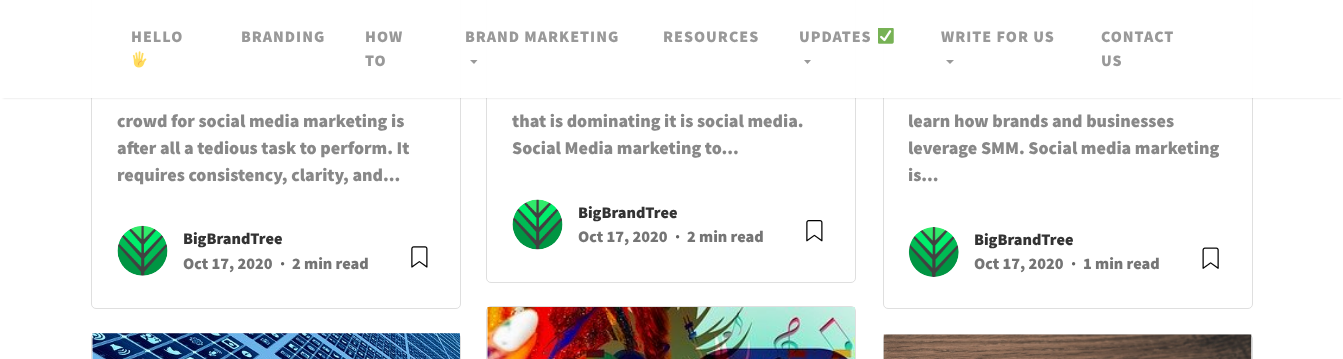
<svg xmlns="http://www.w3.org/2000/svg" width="1343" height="359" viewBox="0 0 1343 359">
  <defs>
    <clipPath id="clip1"><path d="M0 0H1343V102H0ZM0-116H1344V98H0Z" clip-rule="evenodd"/></clipPath>
    <filter id="blur1" x="-50%" y="-200%" width="200%" height="500%"><feGaussianBlur stdDeviation="1"/></filter>
  </defs>
  <rect width="100%" height="100%" fill="#ffffff"/>
  <rect x="91.5" y="-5.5" width="369" height="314" rx="4.5" fill="none" stroke="#dfdfdf"/>
  <rect x="486.5" y="-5.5" width="369" height="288" rx="4.5" fill="none" stroke="#dfdfdf"/>
  <rect x="883.5" y="-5.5" width="369" height="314" rx="4.5" fill="none" stroke="#dfdfdf"/>
  <g clip-path="url(#clip1)">
    <rect x="3" y="-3" width="1338" height="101" fill="#000000" fill-opacity="0.15" filter="url(#blur1)"/>
  </g>
  <rect x="2" y="0" width="1340" height="98" fill="#ffffff" fill-opacity="0.97"/>
  <text x="131" y="42" font-family="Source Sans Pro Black" font-size="16" font-weight="900" letter-spacing="1" fill="#999999">HELLO</text>
  <image x="132" y="51" width="15" height="17" href="img1.png"/>
  <text x="241" y="42" font-family="Source Sans Pro Black" font-size="16" font-weight="900" letter-spacing="1" fill="#999999">BRANDING</text>
  <text x="365" y="42" font-family="Source Sans Pro Black" font-size="16" font-weight="900" letter-spacing="1" fill="#999999">HOW</text>
  <text x="365" y="66" font-family="Source Sans Pro Black" font-size="16" font-weight="900" letter-spacing="1" fill="#999999">TO</text>
  <text x="465" y="42" font-family="Source Sans Pro Black" font-size="16" font-weight="900" letter-spacing="1" fill="#999999">BRAND MARKETING</text>
  <path d="M470 60H477.5L474 64Z" fill="#999999"/>
  <text x="663" y="42" font-family="Source Sans Pro Black" font-size="16" font-weight="900" letter-spacing="1" fill="#999999">RESOURCES</text>
  <text x="799" y="42" font-family="Source Sans Pro Black" font-size="16" font-weight="900" letter-spacing="1" fill="#999999">UPDATES</text>
  <image x="878" y="28" width="16" height="16" href="img2.png"/>
  <path d="M804 60H811L807.5 64Z" fill="#999999"/>
  <text x="941" y="42" font-family="Source Sans Pro Black" font-size="16" font-weight="900" letter-spacing="1" fill="#999999">WRITE FOR US</text>
  <path d="M946 60H954L950 64Z" fill="#999999"/>
  <text x="1101" y="42" font-family="Source Sans Pro Black" font-size="16" font-weight="900" letter-spacing="1" fill="#999999">CONTACT</text>
  <text x="1101" y="66" font-family="Source Sans Pro Black" font-size="16" font-weight="900" letter-spacing="1" fill="#999999">US</text>
  <text x="117" y="127" font-family="Source Sans Pro Black" font-size="18" font-weight="900" fill="#888888">crowd for social media marketing is</text>
  <text x="117" y="154" font-family="Source Sans Pro Black" font-size="18" font-weight="900" fill="#888888">after all a tedious task to perform. It</text>
  <text x="117" y="181" font-family="Source Sans Pro Black" font-size="18" font-weight="900" fill="#888888">requires consistency, clarity, and...</text>
  <image x="117" y="225" width="51" height="51" href="img3.png"/>
  <text x="183" y="244" font-family="Source Sans Pro Black" font-size="16.25" font-weight="900" fill="#333333">BigBrandTree</text>
  <text x="183" y="269" font-family="Source Sans Pro Black" font-size="16.25" font-weight="900" fill="#757575">Oct 17, 2020</text>
  <text x="280" y="269" font-family="Source Sans Pro Black" font-size="16.25" font-weight="900" fill="#666666">·</text>
  <text x="292" y="269" font-family="Source Sans Pro Black" font-size="16.25" font-weight="900" fill="#757575">2 min read</text>
  <image x="411" y="246" width="17" height="22" href="img4.png"/>
  <text x="512" y="127" font-family="Source Sans Pro Black" font-size="18" font-weight="900" fill="#888888">that is dominating it is social media.</text>
  <text x="512" y="154" font-family="Source Sans Pro Black" font-size="18" font-weight="900" fill="#888888">Social Media marketing to...</text>
  <image x="512" y="199" width="51" height="51" href="img5.png"/>
  <text x="578" y="218" font-family="Source Sans Pro Black" font-size="16.25" font-weight="900" fill="#333333">BigBrandTree</text>
  <text x="578" y="242" font-family="Source Sans Pro Black" font-size="16.25" font-weight="900" fill="#757575">Oct 17, 2020</text>
  <text x="675" y="242" font-family="Source Sans Pro Black" font-size="16.25" font-weight="900" fill="#666666">·</text>
  <text x="687" y="242" font-family="Source Sans Pro Black" font-size="16.25" font-weight="900" fill="#757575">2 min read</text>
  <image x="806" y="220" width="17" height="22" href="img6.png"/>
  <text x="908" y="127" font-family="Source Sans Pro Black" font-size="18" font-weight="900" fill="#888888">learn how brands and businesses</text>
  <text x="908" y="154" font-family="Source Sans Pro Black" font-size="18" font-weight="900" fill="#888888">leverage SMM. Social media marketing</text>
  <text x="908" y="181" font-family="Source Sans Pro Black" font-size="18" font-weight="900" fill="#888888">is...</text>
  <image x="908" y="227" width="51" height="50" href="img7.png"/>
  <text x="974" y="245" font-family="Source Sans Pro Black" font-size="16.25" font-weight="900" fill="#333333">BigBrandTree</text>
  <text x="974" y="269" font-family="Source Sans Pro Black" font-size="16.25" font-weight="900" fill="#757575">Oct 17, 2020</text>
  <text x="1071" y="269" font-family="Source Sans Pro Black" font-size="16.25" font-weight="900" fill="#666666">·</text>
  <text x="1083" y="269" font-family="Source Sans Pro Black" font-size="16.25" font-weight="900" fill="#757575">1 min read</text>
  <image x="1202" y="247" width="17" height="22" href="img8.png"/>
  <rect x="91.5" y="333.5" width="369" height="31" rx="4.5" fill="none" stroke="#dfdfdf"/>
  <image x="92" y="333" width="368" height="26" href="img9.png"/>
  <rect x="486.5" y="306.5" width="369" height="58" rx="4.5" fill="none" stroke="#dfdfdf"/>
  <image x="487" y="307" width="368" height="52" href="img10.png"/>
  <rect x="883.5" y="334.5" width="369" height="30" rx="4.5" fill="none" stroke="#dfdfdf"/>
  <image x="883" y="334" width="369" height="25" href="img11.png"/>
</svg>
